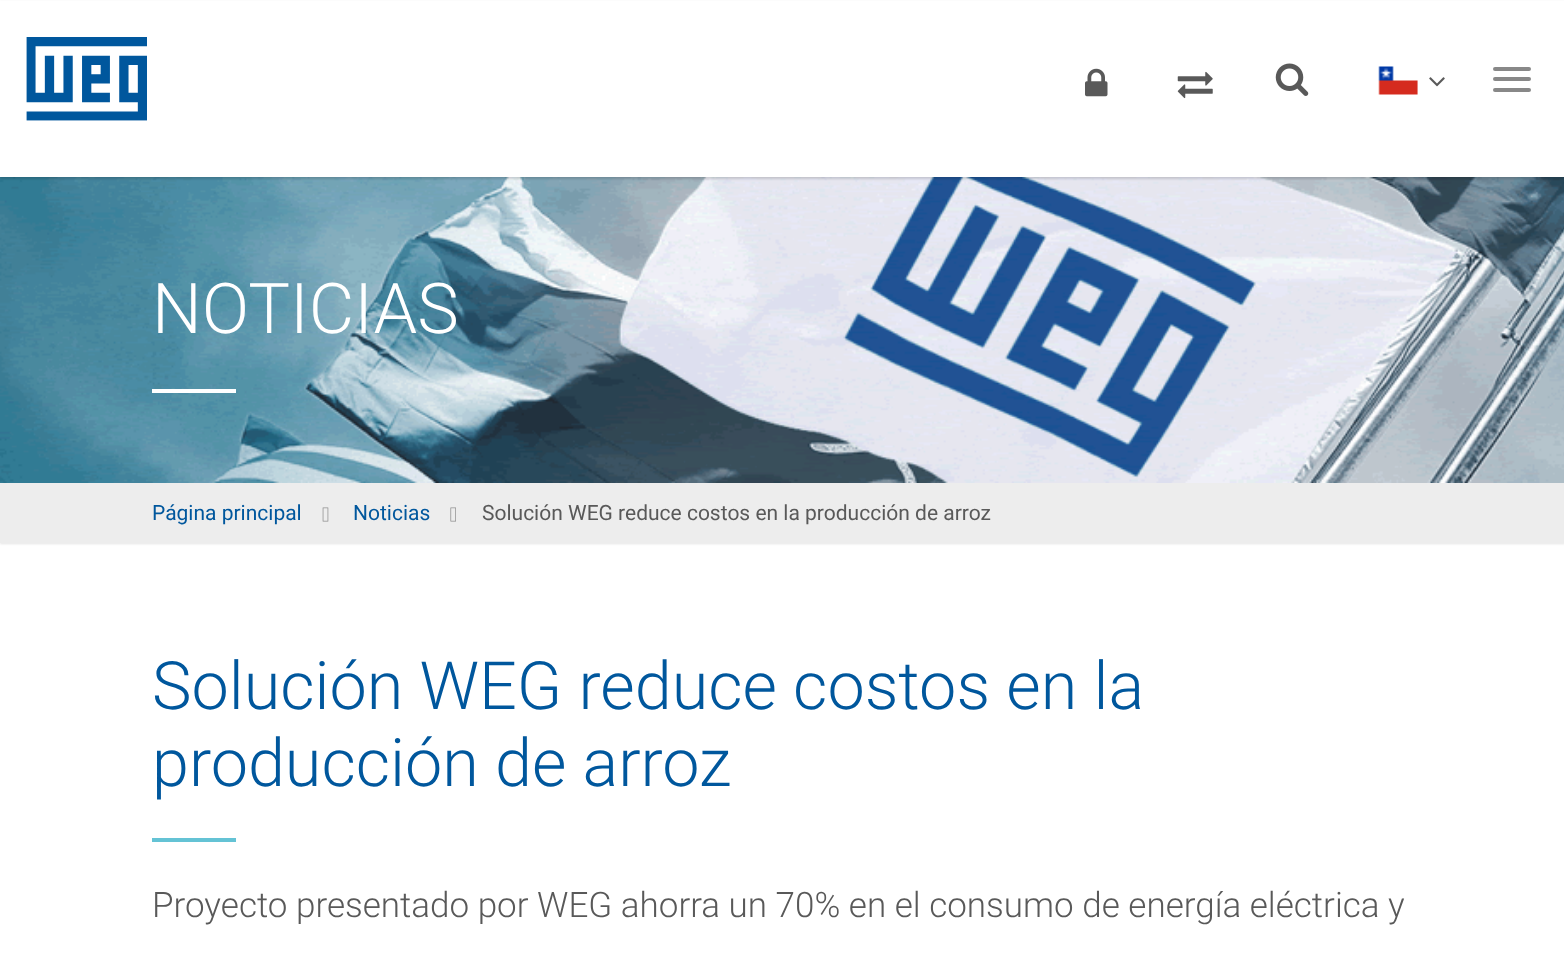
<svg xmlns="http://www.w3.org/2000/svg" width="1564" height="957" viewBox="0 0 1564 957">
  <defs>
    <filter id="blur1" x="-50%" y="-200%" width="200%" height="500%"><feGaussianBlur stdDeviation="1"/></filter>
  </defs>
  <rect width="100%" height="100%" fill="#ffffff"/>
  <image x="0" y="177" width="1564" height="306" href="img7.png"/>
  <rect x="0" y="2" width="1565" height="177" fill="#000000" fill-opacity="0.15" filter="url(#blur1)"/>
  <rect x="0" y="1" width="1564" height="176" fill="#ffffff"/>
  <image x="26" y="37" width="121" height="84" href="img1.png"/>
  <image x="1085" y="68" width="23" height="29" href="img2.png"/>
  <image x="1177" y="71" width="36" height="28" href="img3.png"/>
  <image x="1275" y="63" width="34" height="33" href="img4.png"/>
  <image x="1378" y="66" width="40" height="29" href="img5.png"/>
  <image x="1429" y="77" width="16" height="10" href="img6.png"/>
  <rect x="1493" y="67" width="38" height="4" rx="2" fill="#888888"/>
  <rect x="1493" y="77" width="38" height="4" rx="2" fill="#888888"/>
  <rect x="1493" y="88" width="38" height="4" rx="2" fill="#888888"/>
  <text x="152" y="333" font-family="Roboto" font-size="70" font-weight="300" fill="#ffffff">NOTICIAS</text>
  <rect x="152" y="389" width="84" height="4" fill="#ffffff"/>
  <rect x="0" y="485" width="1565" height="59" fill="#000000" fill-opacity="0.1" filter="url(#blur1)"/>
  <rect x="0" y="483" width="1564" height="60" fill="#ededed"/>
  <text x="152" y="520" font-family="Roboto" font-size="21" fill="#00579d">Página principal</text>
  <image x="322" y="507" width="7" height="15" href="img8.png"/>
  <text x="353" y="520" font-family="Roboto" font-size="21" fill="#00579d">Noticias</text>
  <image x="450" y="507" width="6" height="15" href="img9.png"/>
  <text x="482" y="520" font-family="Roboto" font-size="21" fill="#595959">Solución WEG reduce costos en la producción de arroz</text>
  <text x="152" y="709" font-family="Roboto" font-size="66.5" font-weight="300" fill="#00579d">Solución WEG reduce costos en la</text>
  <text x="152" y="786" font-family="Roboto" font-size="66.5" font-weight="300" fill="#00579d">producción de arroz</text>
  <rect x="152" y="838" width="84" height="4" fill="#64c3d5"/>
  <text x="152" y="917" font-family="Roboto" font-size="35" font-weight="300" fill="#595959">Proyecto presentado por WEG ahorra un 70% en el consumo de energía eléctrica y</text>
</svg>
